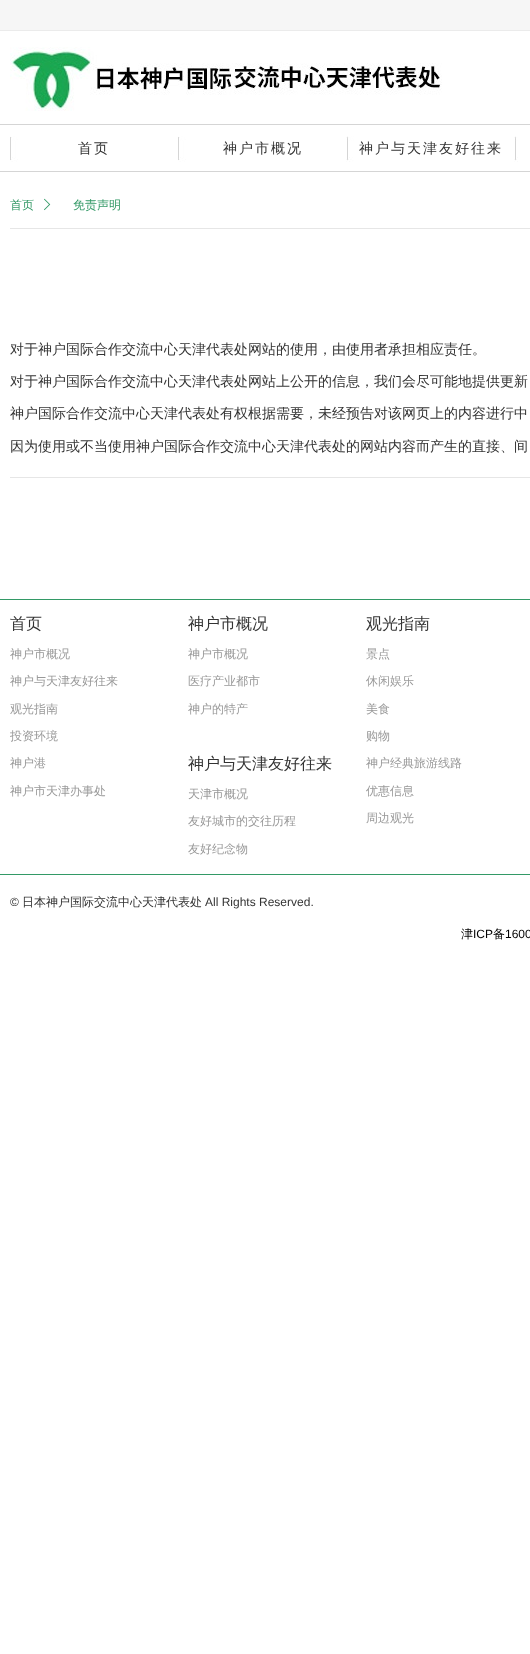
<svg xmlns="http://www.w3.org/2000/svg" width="530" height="1654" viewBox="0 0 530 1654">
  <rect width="100%" height="100%" fill="#ffffff"/>
  <rect x="0" y="0" width="530" height="30" fill="#f6f6f6"/>
  <rect x="0" y="30" width="530" height="1" fill="#ebebeb"/>
  <image x="10" y="47" width="432" height="64" href="img1.png"/>
  <rect x="0" y="124" width="530" height="1" fill="#d5d5d5"/>
  <rect x="0" y="171" width="530" height="1" fill="#d5d5d5"/>
  <image x="10" y="136" width="508" height="26" href="img2.png"/>
  <text x="78" y="153" font-family="WenQuanYi Zen Hei" font-size="14" font-weight="500" letter-spacing="2" fill="#333333">首页</text>
  <text x="223" y="153" font-family="WenQuanYi Zen Hei" font-size="14" font-weight="500" letter-spacing="2" fill="#333333">神户市概况</text>
  <text x="359" y="153" font-family="WenQuanYi Zen Hei" font-size="14" font-weight="500" letter-spacing="2" fill="#333333">神户与天津友好往来</text>
  <text x="10" y="209" font-family="WenQuanYi Zen Hei" font-size="12" font-weight="500" fill="#339966">首页</text>
  <image x="44" y="198" width="7" height="13" href="img3.png"/>
  <text x="73" y="209" font-family="WenQuanYi Zen Hei" font-size="12" font-weight="500" fill="#339966">免责声明</text>
  <rect x="10" y="228" width="520" height="1" fill="#e6e6e6"/>
  <text x="10" y="354" font-family="WenQuanYi Zen Hei" font-size="14" font-weight="500" fill="#333333">对于神户国际合作交流中心天津代表处网站的使用，由使用者承担相应责任。</text>
  <text x="10" y="386" font-family="WenQuanYi Zen Hei" font-size="14" font-weight="500" fill="#333333">对于神户国际合作交流中心天津代表处网站上公开的信息，我们会尽可能地提供更新</text>
  <text x="10" y="418" font-family="WenQuanYi Zen Hei" font-size="14" font-weight="500" fill="#333333">神户国际合作交流中心天津代表处有权根据需要，未经预告对该网页上的内容进行中</text>
  <text x="10" y="451" font-family="WenQuanYi Zen Hei" font-size="14" font-weight="500" fill="#333333">因为使用或不当使用神户国际合作交流中心天津代表处的网站内容而产生的直接、间</text>
  <rect x="10" y="477" width="520" height="1" fill="#e6e6e6"/>
  <rect x="0" y="599" width="530" height="1" fill="#339966"/>
  <text x="10" y="629" font-family="WenQuanYi Zen Hei" font-size="16" font-weight="500" fill="#333333">首页</text>
  <text x="10" y="658" font-family="WenQuanYi Zen Hei" font-size="12" font-weight="500" fill="#999999">神户市概况</text>
  <text x="10" y="685" font-family="WenQuanYi Zen Hei" font-size="12" font-weight="500" fill="#999999">神户与天津友好往来</text>
  <text x="10" y="713" font-family="WenQuanYi Zen Hei" font-size="12" font-weight="500" fill="#999999">观光指南</text>
  <text x="10" y="740" font-family="WenQuanYi Zen Hei" font-size="12" font-weight="500" fill="#999999">投资环境</text>
  <text x="10" y="767" font-family="WenQuanYi Zen Hei" font-size="12" font-weight="500" fill="#999999">神户港</text>
  <text x="10" y="795" font-family="WenQuanYi Zen Hei" font-size="12" font-weight="500" fill="#999999">神户市天津办事处</text>
  <text x="188" y="629" font-family="WenQuanYi Zen Hei" font-size="16" font-weight="500" fill="#333333">神户市概况</text>
  <text x="188" y="658" font-family="WenQuanYi Zen Hei" font-size="12" font-weight="500" fill="#999999">神户市概况</text>
  <text x="188" y="685" font-family="WenQuanYi Zen Hei" font-size="12" font-weight="500" fill="#999999">医疗产业都市</text>
  <text x="188" y="713" font-family="WenQuanYi Zen Hei" font-size="12" font-weight="500" fill="#999999">神户的特产</text>
  <text x="188" y="769" font-family="WenQuanYi Zen Hei" font-size="16" font-weight="500" fill="#333333">神户与天津友好往来</text>
  <text x="188" y="798" font-family="WenQuanYi Zen Hei" font-size="12" font-weight="500" fill="#999999">天津市概况</text>
  <text x="188" y="825" font-family="WenQuanYi Zen Hei" font-size="12" font-weight="500" fill="#999999">友好城市的交往历程</text>
  <text x="188" y="853" font-family="WenQuanYi Zen Hei" font-size="12" font-weight="500" fill="#999999">友好纪念物</text>
  <text x="366" y="629" font-family="WenQuanYi Zen Hei" font-size="16" font-weight="500" fill="#333333">观光指南</text>
  <text x="366" y="658" font-family="WenQuanYi Zen Hei" font-size="12" font-weight="500" fill="#999999">景点</text>
  <text x="366" y="685" font-family="WenQuanYi Zen Hei" font-size="12" font-weight="500" fill="#999999">休闲娱乐</text>
  <text x="366" y="713" font-family="WenQuanYi Zen Hei" font-size="12" font-weight="500" fill="#999999">美食</text>
  <text x="366" y="740" font-family="WenQuanYi Zen Hei" font-size="12" font-weight="500" fill="#999999">购物</text>
  <text x="366" y="767" font-family="WenQuanYi Zen Hei" font-size="12" font-weight="500" fill="#999999">神户经典旅游线路</text>
  <text x="366" y="795" font-family="WenQuanYi Zen Hei" font-size="12" font-weight="500" fill="#999999">优惠信息</text>
  <text x="366" y="822" font-family="WenQuanYi Zen Hei" font-size="12" font-weight="500" fill="#999999">周边观光</text>
  <rect x="0" y="874" width="530" height="1" fill="#339966"/>
  <text x="10" y="906" font-family="Liberation Sans" font-size="12" fill="#333333">©</text>
  <text x="22" y="906" font-family="WenQuanYi Zen Hei" font-size="12" font-weight="500" fill="#333333">日本神户国际交流中心天津代表处</text>
  <text x="205" y="906" font-family="Liberation Sans" font-size="12" fill="#333333">All Rights Reserved.</text>
  <text x="461" y="938" font-family="WenQuanYi Zen Hei" font-size="12" font-weight="500" fill="#000000">津</text>
  <text x="473" y="938" font-family="Liberation Sans" font-size="12" fill="#000000">ICP</text>
  <text x="493" y="938" font-family="WenQuanYi Zen Hei" font-size="12" font-weight="500" fill="#000000">备</text>
  <text x="505" y="938" font-family="Liberation Sans" font-size="12" fill="#000000">1600</text>
</svg>
